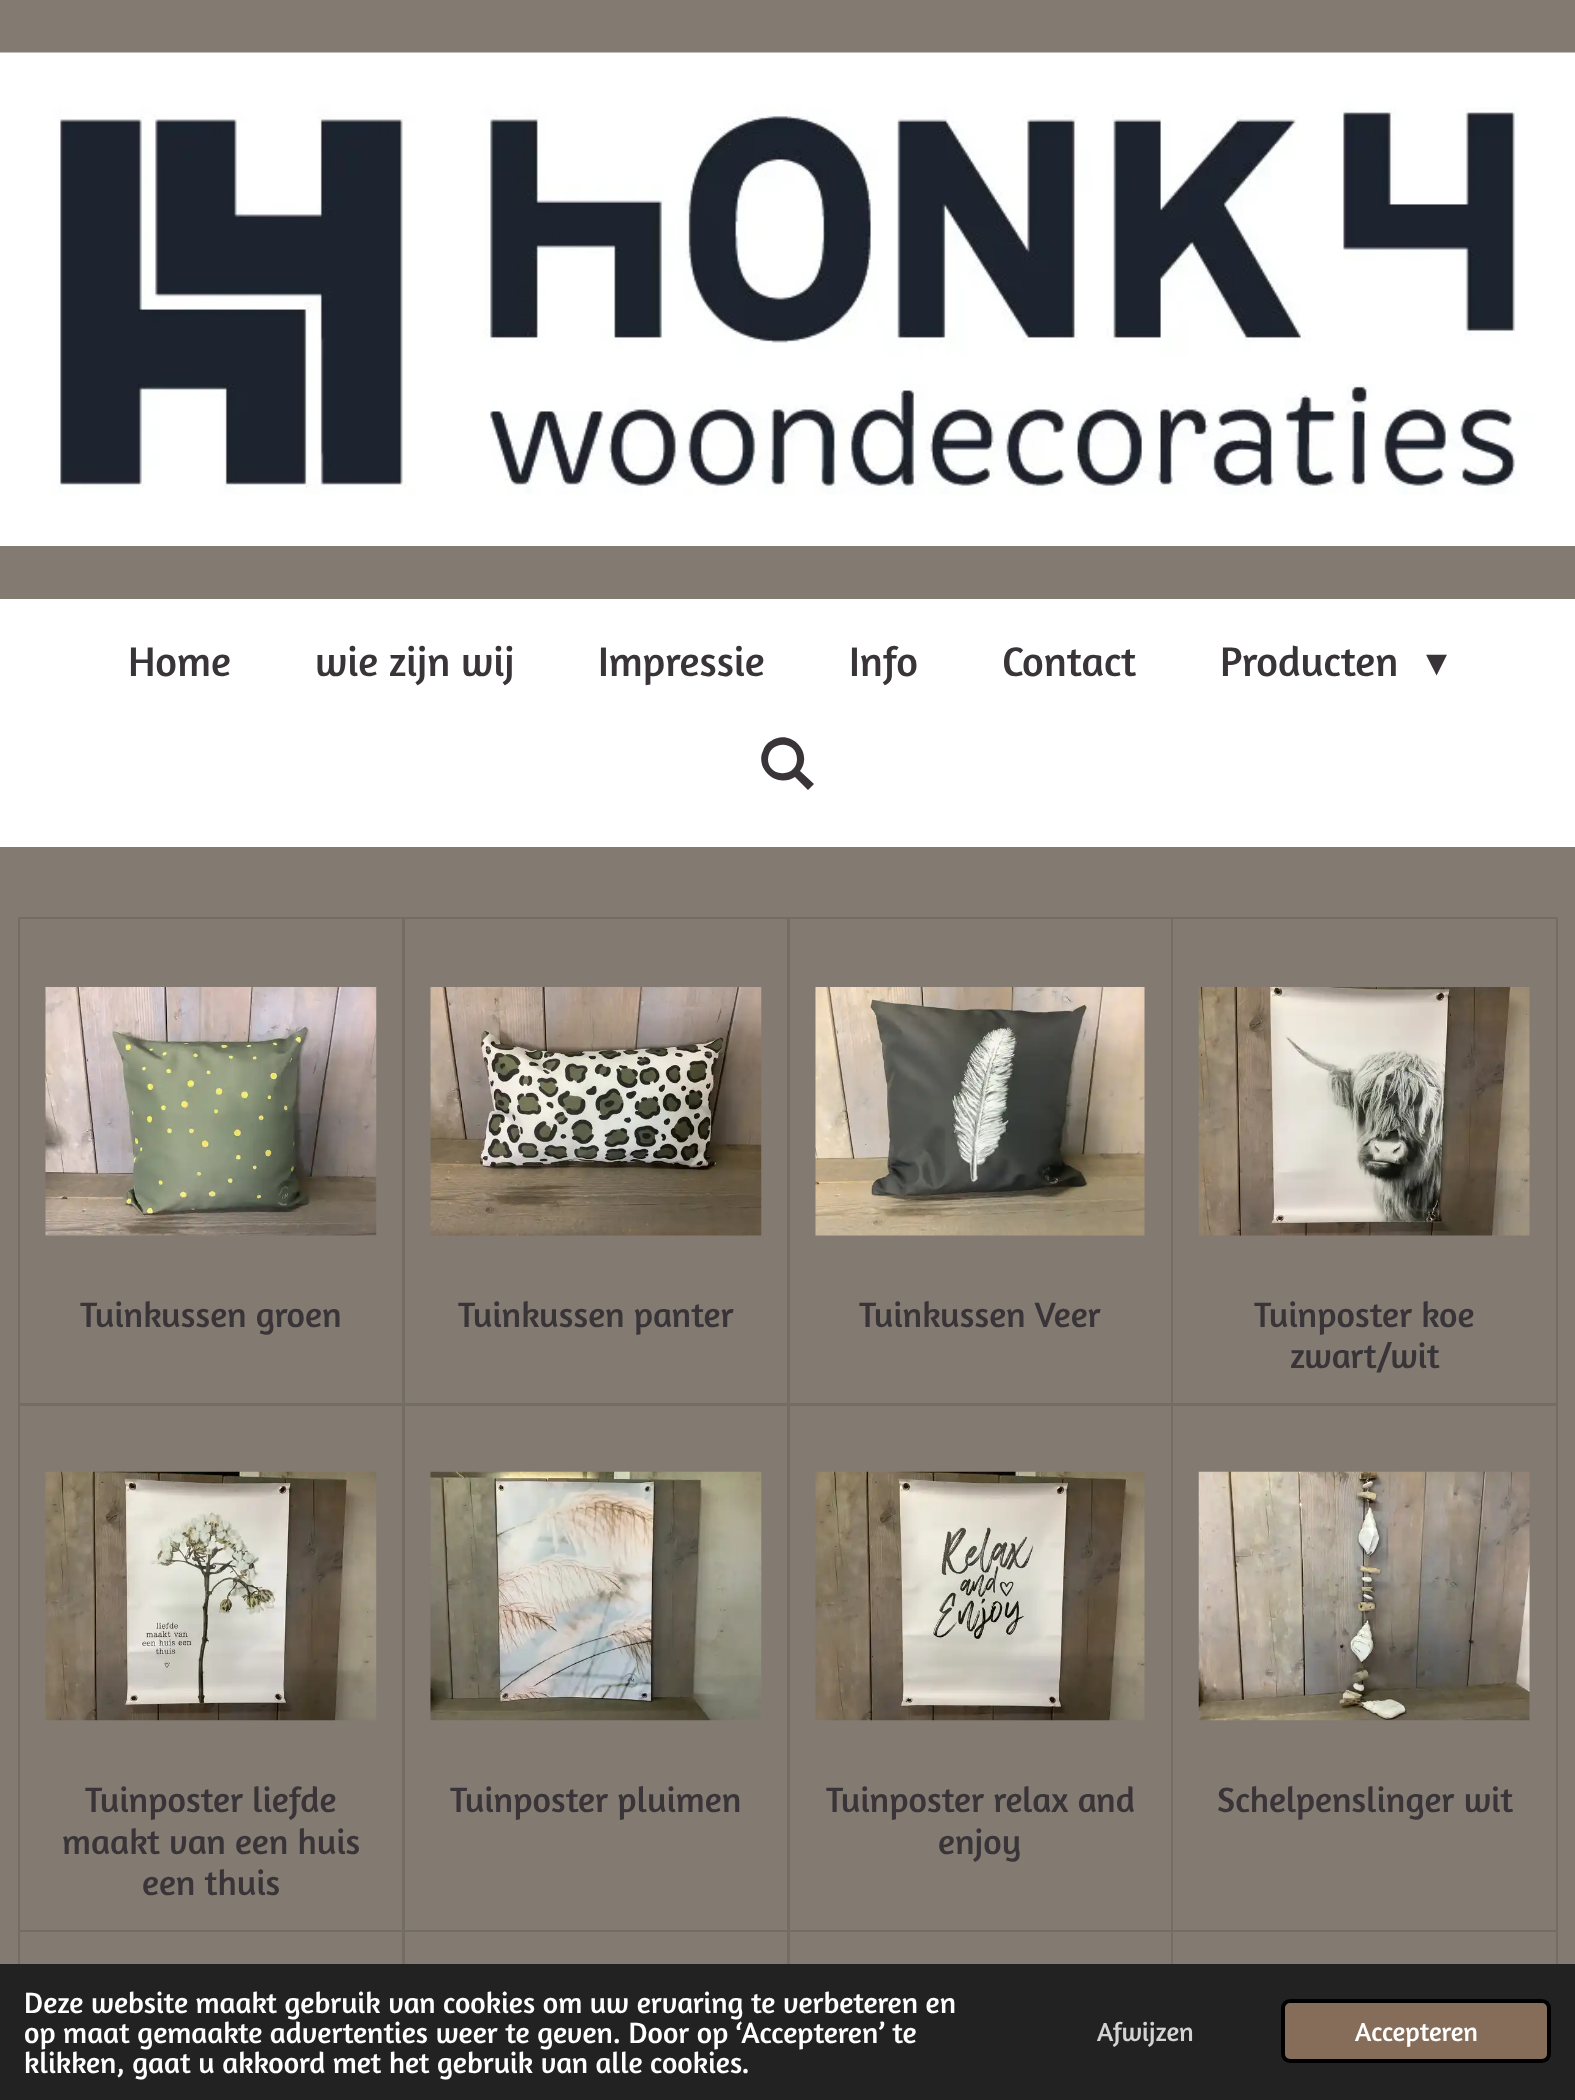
<svg xmlns="http://www.w3.org/2000/svg" width="1575" height="2100" viewBox="0 0 1575 2100">
  <rect width="100%" height="100%" fill="#837b72"/>
  <image x="0" y="52" width="1575" height="494" href="img1.png"/>
  <rect x="0" y="599" width="1575" height="248" fill="#ffffff"/>
  <text x="128" y="676" font-family="Amaranth" font-size="42" fill="#393438">Home</text>
  <text x="315" y="676" font-family="Amaranth" font-size="42" fill="#393438">wie zijn wij</text>
  <text x="598" y="676" font-family="Amaranth" font-size="42" fill="#393438">Impressie</text>
  <text x="849" y="676" font-family="Amaranth" font-size="42" fill="#393438">Info</text>
  <text x="1002" y="676" font-family="Amaranth" font-size="42" fill="#393438">Contact</text>
  <text x="1220" y="676" font-family="Amaranth" font-size="42" fill="#393438">Producten</text>
  <text x="1426" y="676" font-family="DejaVu Sans" font-size="42" fill="#393438">▾</text>
  <path d="M800 771L814 784L808 790L795 777C784 784 770 780 764 769C761 764 760 757 763 751C764 747 767 743 771 741C790 728 814 752 800 771ZM797 759C797 740 769 740 768 759C768 778 797 778 797 759Z" fill="#393438"/>
  <rect x="19" y="918" width="384" height="486" fill="none" stroke="#746d66" stroke-width="2"/>
  <image x="45" y="987" width="332" height="249" href="img2.png"/>
  <text x="80" y="1327" font-family="Amaranth" font-size="35.75" fill="#393438">Tuinkussen groen</text>
  <rect x="404" y="918" width="384" height="486" fill="none" stroke="#746d66" stroke-width="2"/>
  <image x="430" y="987" width="332" height="249" href="img3.png"/>
  <text x="458" y="1327" font-family="Amaranth" font-size="35.75" fill="#393438">Tuinkussen panter</text>
  <rect x="789" y="918" width="383" height="486" fill="none" stroke="#746d66" stroke-width="2"/>
  <image x="815" y="987" width="330" height="249" href="img4.png"/>
  <text x="859" y="1327" font-family="Amaranth" font-size="35.75" fill="#393438">Tuinkussen Veer</text>
  <rect x="1172" y="918" width="385" height="486" fill="none" stroke="#746d66" stroke-width="2"/>
  <image x="1198" y="987" width="332" height="249" href="img5.png"/>
  <text x="1254" y="1327" font-family="Amaranth" font-size="35.75" fill="#393438">Tuinposter koe</text>
  <text x="1290" y="1368" font-family="Amaranth" font-size="35.75" fill="#393438">zwart/wit</text>
  <rect x="19" y="1405" width="384" height="526" fill="none" stroke="#746d66" stroke-width="2"/>
  <image x="45" y="1471" width="332" height="250" href="img6.png"/>
  <text x="85" y="1812" font-family="Amaranth" font-size="35.75" fill="#393438">Tuinposter liefde</text>
  <text x="62" y="1854" font-family="Amaranth" font-size="35.75" fill="#393438">maakt van een huis</text>
  <text x="142" y="1895" font-family="Amaranth" font-size="35.75" fill="#393438">een thuis</text>
  <rect x="404" y="1405" width="384" height="526" fill="none" stroke="#746d66" stroke-width="2"/>
  <image x="430" y="1471" width="332" height="250" href="img7.png"/>
  <text x="450" y="1812" font-family="Amaranth" font-size="35.75" fill="#393438">Tuinposter pluimen</text>
  <rect x="789" y="1405" width="383" height="526" fill="none" stroke="#746d66" stroke-width="2"/>
  <image x="815" y="1471" width="330" height="250" href="img8.png"/>
  <text x="826" y="1812" font-family="Amaranth" font-size="35.75" fill="#393438">Tuinposter relax and</text>
  <text x="938" y="1854" font-family="Amaranth" font-size="35.75" fill="#393438">enjoy</text>
  <rect x="1172" y="1405" width="385" height="526" fill="none" stroke="#746d66" stroke-width="2"/>
  <image x="1198" y="1471" width="332" height="250" href="img9.png"/>
  <text x="1217" y="1812" font-family="Amaranth" font-size="35.75" fill="#393438">Schelpenslinger wit</text>
  <rect x="19" y="1931" width="384" height="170" fill="none" stroke="#746d66" stroke-width="2"/>
  <rect x="404" y="1931" width="384" height="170" fill="none" stroke="#746d66" stroke-width="2"/>
  <rect x="789" y="1931" width="383" height="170" fill="none" stroke="#746d66" stroke-width="2"/>
  <rect x="1172" y="1931" width="385" height="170" fill="none" stroke="#746d66" stroke-width="2"/>
  <rect x="0" y="1964" width="1575" height="136" fill="#222222"/>
  <text x="24" y="2013" font-family="Amaranth" font-size="29.75" fill="#ffffff">Deze website maakt gebruik van cookies om uw ervaring te verbeteren en</text>
  <text x="24" y="2043" font-family="Amaranth" font-size="29.75" fill="#ffffff">op maat gemaakte advertenties weer te geven. Door op ‘Accepteren’ te</text>
  <text x="24" y="2073" font-family="Amaranth" font-size="29.75" fill="#ffffff">klikken, gaat u akkoord met het gebruik van alle cookies.</text>
  <text x="1097" y="2041" font-family="Amaranth" font-size="26.75" fill="#d3d3d3">Afwijzen</text>
  <rect x="1283" y="2001" width="266" height="60" rx="7" fill="#866d59" stroke="#000000" stroke-width="4"/>
  <text x="1355" y="2041" font-family="Amaranth" font-size="26.75" fill="#ffffff">Accepteren</text>
</svg>
